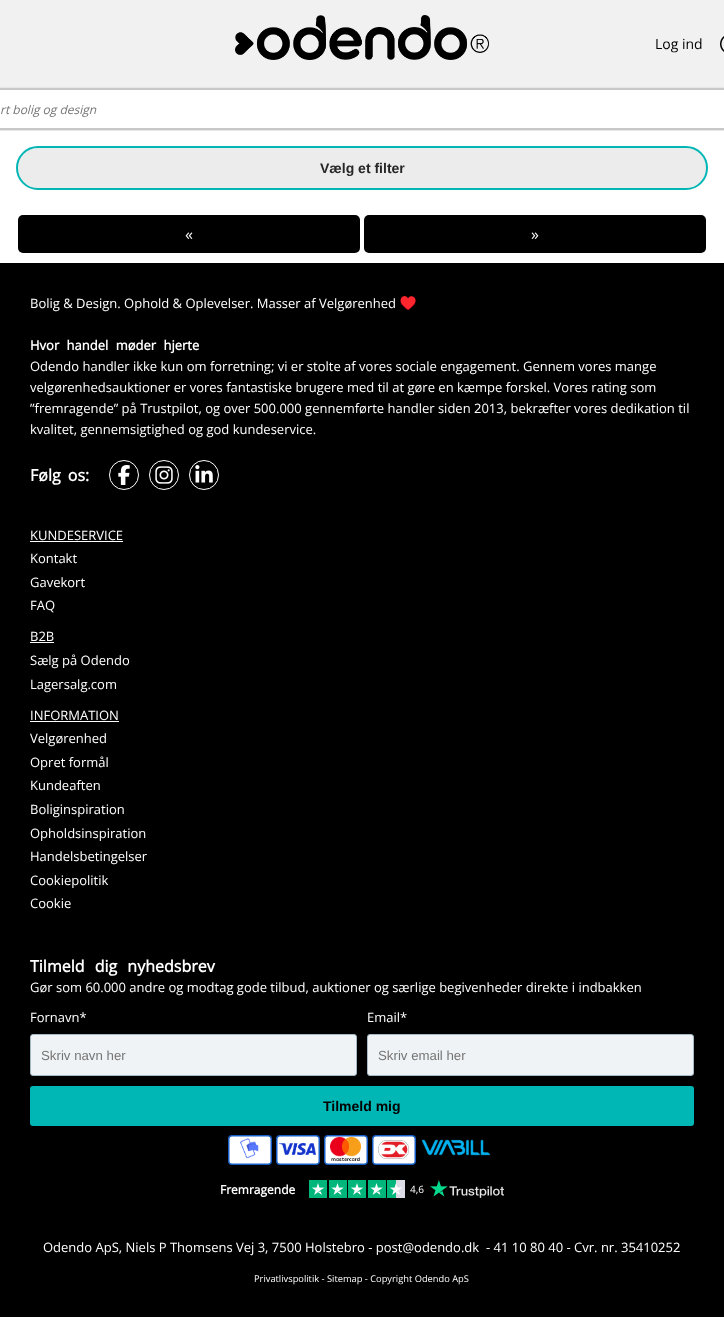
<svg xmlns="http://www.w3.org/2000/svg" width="724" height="1327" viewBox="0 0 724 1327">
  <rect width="100%" height="100%" fill="#ffffff"/>
  <rect x="0" y="0" width="724" height="87" fill="#f1f1f1"/>
  <image x="235" y="15" width="254" height="45" href="img1.png"/>
  <text x="655" y="49" font-family="Open Sans" font-size="14" fill="#000000">Log ind</text>
  <image x="720" y="36" width="4" height="16" href="img2.png"/>
  <rect x="0" y="87" width="724" height="44" fill="#e6e6e6"/>
  <rect x="-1" y="89" width="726" height="40" fill="#ffffff" stroke="#c8c8c8" stroke-width="2"/>
  <text x="0" y="114" font-family="Open Sans" font-size="12" font-style="italic" fill="#757575">rt bolig og design</text>
  <rect x="17" y="147" width="690" height="42" rx="21" fill="#ececec" stroke="#02b6b5" stroke-width="2"/>
  <text x="320" y="173" font-family="Liberation Sans" font-size="14" font-weight="bold" fill="#272727">Vælg et filter</text>
  <rect x="18" y="215" width="342" height="38" rx="5" fill="#000000"/>
  <text x="185" y="240" font-family="Open Sans" font-size="16" fill="#ffffff">«</text>
  <rect x="364" y="215" width="342" height="38" rx="5" fill="#000000"/>
  <text x="531" y="240" font-family="Open Sans" font-size="16" fill="#ffffff">»</text>
  <rect x="0" y="263" width="724" height="1054" fill="#000000"/>
  <text x="30" y="308" font-family="Open Sans" font-size="13" fill="#ffffff">Bolig &amp; Design. Ophold &amp; Oplevelser. Masser af Velgørenhed</text>
  <image x="400" y="296" width="16" height="14" href="img3.png"/>
  <text x="30" y="350" word-spacing="4" font-family="Open Sans" font-size="13" font-weight="bold" fill="#ffffff">Hvor handel møder hjerte</text>
  <text x="30" y="371" font-family="Open Sans" font-size="13" fill="#ffffff">Odendo handler ikke kun om forretning; vi er stolte af vores sociale engagement. Gennem vores mange</text>
  <text x="30" y="392" font-family="Open Sans" font-size="13" fill="#ffffff">velgørenhedsauktioner er vores fantastiske brugere med til at gøre en kæmpe forskel. Vores rating som</text>
  <text x="30" y="413" font-family="Open Sans" font-size="13" fill="#ffffff">”fremragende” på Trustpilot, og over 500.000 gennemførte handler siden 2013, bekræfter vores dedikation til</text>
  <text x="30" y="434" font-family="Open Sans" font-size="13" fill="#ffffff">kvalitet, gennemsigtighed og god kundeservice.</text>
  <text x="30" y="481" word-spacing="3" font-family="Open Sans" font-size="16" font-weight="bold" fill="#ffffff">Følg os:</text>
  <circle cx="124" cy="475" r="14.5" fill="none" stroke="#ffffff"/>
  <image x="118" y="465" width="12" height="20" href="img4.png"/>
  <circle cx="164" cy="475" r="14.5" fill="none" stroke="#ffffff"/>
  <image x="155" y="466" width="18" height="18" href="img5.png"/>
  <circle cx="204" cy="475" r="14.5" fill="none" stroke="#ffffff"/>
  <image x="195" y="465" width="18" height="18" href="img6.png"/>
  <text x="30" y="540" font-family="Open Sans" font-size="13" fill="#ffffff">KUNDESERVICE</text>
  <rect x="30" y="541" width="93" height="1" fill="#ffffff"/>
  <text x="30" y="563" font-family="Open Sans" font-size="13" fill="#ffffff">Kontakt</text>
  <text x="30" y="587" font-family="Open Sans" font-size="13" fill="#ffffff">Gavekort</text>
  <text x="30" y="610" font-family="Open Sans" font-size="13" fill="#ffffff">FAQ</text>
  <text x="30" y="641" font-family="Open Sans" font-size="13" fill="#ffffff">B2B</text>
  <rect x="30" y="642" width="24" height="1" fill="#ffffff"/>
  <text x="30" y="665" font-family="Open Sans" font-size="13" fill="#ffffff">Sælg på Odendo</text>
  <text x="30" y="689" font-family="Open Sans" font-size="13" fill="#ffffff">Lagersalg.com</text>
  <text x="30" y="720" font-family="Open Sans" font-size="13" fill="#ffffff">INFORMATION</text>
  <rect x="30" y="721" width="89" height="1" fill="#ffffff"/>
  <text x="30" y="743" font-family="Open Sans" font-size="13" fill="#ffffff">Velgørenhed</text>
  <text x="30" y="767" font-family="Open Sans" font-size="13" fill="#ffffff">Opret formål</text>
  <text x="30" y="790" font-family="Open Sans" font-size="13" fill="#ffffff">Kundeaften</text>
  <text x="30" y="814" font-family="Open Sans" font-size="13" fill="#ffffff">Boliginspiration</text>
  <text x="30" y="838" font-family="Open Sans" font-size="13" fill="#ffffff">Opholdsinspiration</text>
  <text x="30" y="861" font-family="Open Sans" font-size="13" fill="#ffffff">Handelsbetingelser</text>
  <text x="30" y="885" font-family="Open Sans" font-size="13" fill="#ffffff">Cookiepolitik</text>
  <text x="30" y="908" font-family="Open Sans" font-size="13" fill="#ffffff">Cookie</text>
  <text x="30" y="972" word-spacing="6" font-family="Open Sans" font-size="16" font-weight="bold" fill="#ffffff">Tilmeld dig nyhedsbrev</text>
  <text x="30" y="992" font-family="Open Sans" font-size="13" fill="#ffffff">Gør som 60.000 andre og modtag gode tilbud, auktioner og særlige begivenheder direkte i indbakken</text>
  <text x="30" y="1022" font-family="Open Sans" font-size="13" fill="#ffffff">Fornavn*</text>
  <rect x="30.5" y="1034.5" width="326" height="41" rx="2.5" fill="#f0f3f5" stroke="#a3bac6"/>
  <text x="41" y="1060" font-family="Liberation Sans" font-size="13.25" fill="#757575">Skriv navn her</text>
  <text x="367" y="1022" font-family="Open Sans" font-size="13" fill="#ffffff">Email*</text>
  <rect x="367.5" y="1034.5" width="326" height="41" rx="2.5" fill="#f0f3f5" stroke="#a3bac6"/>
  <text x="378" y="1060" font-family="Liberation Sans" font-size="13.25" fill="#757575">Skriv email her</text>
  <rect x="30" y="1086" width="664" height="40" rx="3" fill="#00b7b5"/>
  <text x="323" y="1111" font-family="Liberation Sans" font-size="14" font-weight="bold" fill="#000000">Tilmeld mig</text>
  <rect x="228.75" y="1135.75" width="42.5" height="28.5" rx="3.25" fill="#ffffff" stroke="#155dc7" stroke-width="1.5"/>
  <image x="240" y="1138" width="19" height="21" href="img7.png"/>
  <rect x="276.75" y="1135.75" width="42.5" height="28.5" rx="3.25" fill="#ffffff" stroke="#155dc7" stroke-width="1.5"/>
  <image x="279" y="1143" width="37" height="12" href="img8.png"/>
  <rect x="324.75" y="1135.75" width="42.5" height="28.5" rx="3.25" fill="#ffffff" stroke="#155dc7" stroke-width="1.5"/>
  <image x="330" y="1137" width="31" height="24" href="img9.png"/>
  <rect x="372.75" y="1135.75" width="42.5" height="28.5" rx="3.25" fill="#ffffff" stroke="#155dc7" stroke-width="1.5"/>
  <image x="378" y="1140" width="31" height="19" href="img10.png"/>
  <image x="422" y="1139" width="68" height="17" href="img11.png"/>
  <text x="220" y="1194" font-family="Open Sans" font-size="12" font-weight="bold" fill="#ffffff">Fremragende</text>
  <image x="309" y="1180" width="96" height="18" href="img12.png"/>
  <text x="410" y="1193" font-family="Open Sans" font-size="10" fill="#ffffff">4,6</text>
  <image x="430" y="1180" width="74" height="18" href="img13.png"/>
  <text x="43" y="1252" font-family="Open Sans" font-size="13" fill="#ffffff">Odendo ApS, Niels P Thomsens Vej 3, 7500 Holstebro - post@odendo.dk</text>
  <text x="486" y="1252" font-family="Open Sans" font-size="13" fill="#ffffff">- 41 10 80 40 - Cvr. nr. 35410252</text>
  <text x="254" y="1282" font-family="Open Sans" font-size="9.3" fill="#ffffff">Privatlivspolitik - Sitemap - Copyright Odendo ApS</text>
</svg>
